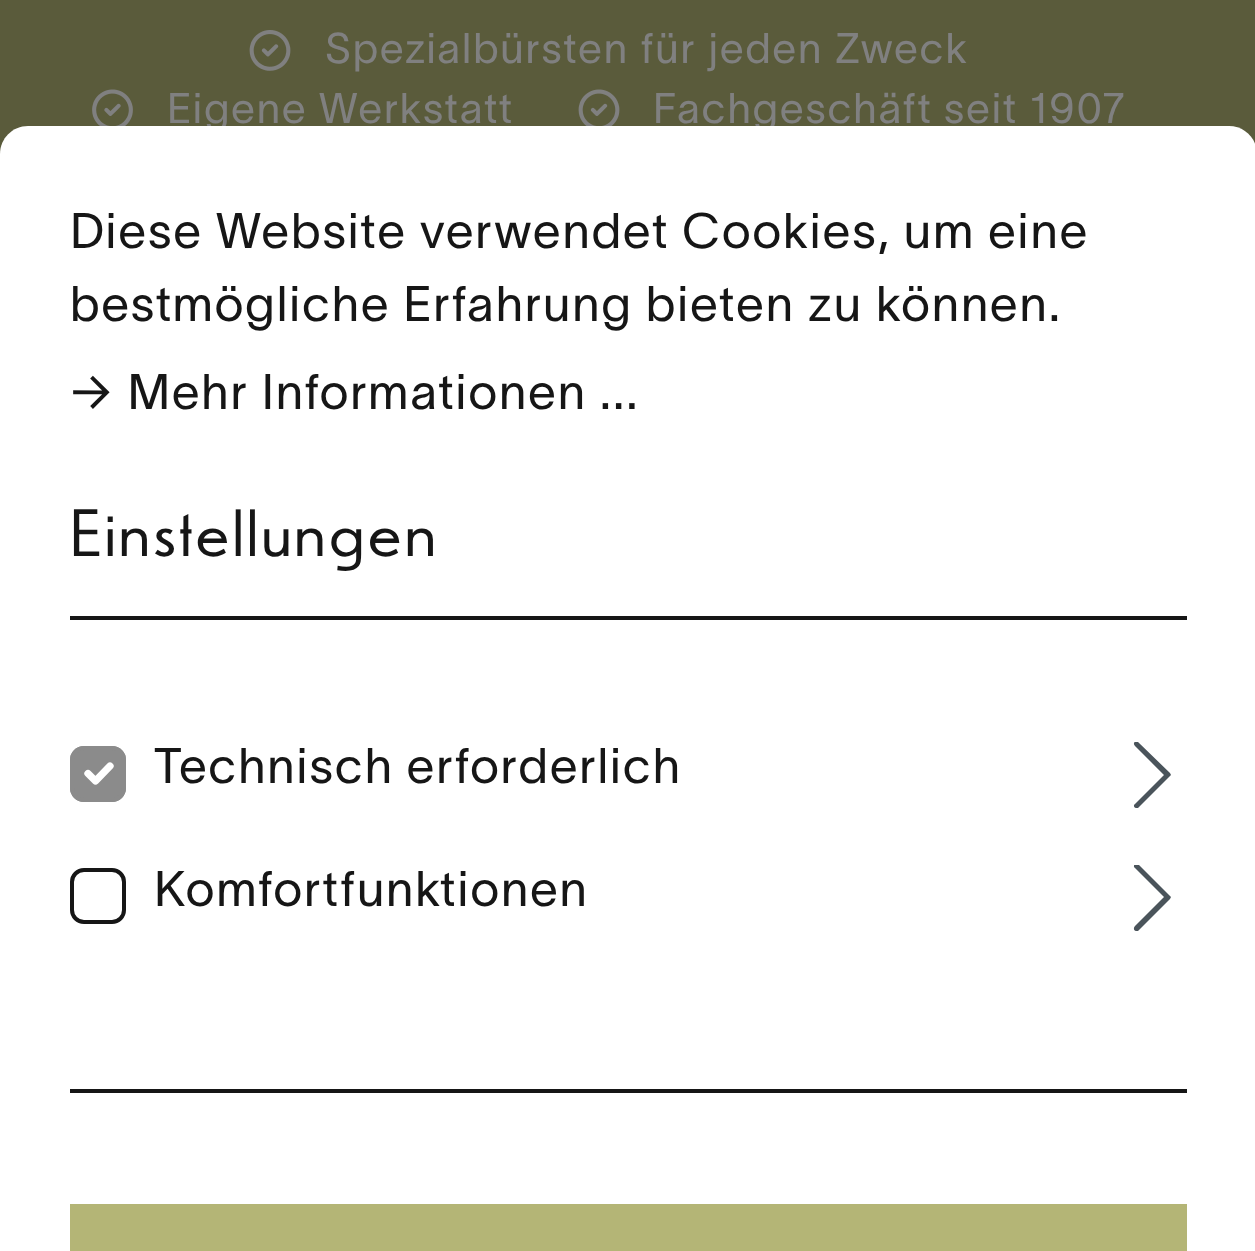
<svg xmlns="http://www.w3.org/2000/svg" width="1255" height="1251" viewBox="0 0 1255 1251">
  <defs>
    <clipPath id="clip1"><rect x="1120" y="742" width="67" height="70"/></clipPath>
    <clipPath id="clip2"><rect x="1120" y="865" width="67" height="70"/></clipPath>
  </defs>
  <rect width="100%" height="100%" fill="#5a5b3b"/>
  <image x="249" y="30" width="42" height="41" href="img1.png"/>
  <text x="325" y="63" font-family="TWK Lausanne" font-size="42" font-weight="300" letter-spacing="1.95" fill="#808080">Spezialbürsten für jeden Zweck</text>
  <image x="92" y="89" width="41" height="37" href="img2.png"/>
  <text x="167" y="123" font-family="TWK Lausanne" font-size="42" font-weight="300" letter-spacing="1.95" fill="#808080">Eigene Werkstatt</text>
  <image x="578" y="89" width="42" height="37" href="img3.png"/>
  <text x="653" y="123" font-family="TWK Lausanne" font-size="42" font-weight="300" letter-spacing="1.95" fill="#808080">Fachgeschäft seit 1907</text>
  <path d="M28 126H1229C1244.5 126 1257 138.5 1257 154V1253H0V154C0 138.5 12.5 126 28 126Z" fill="#ffffff"/>
  <rect x="70" y="616" width="1117" height="4" fill="#161616"/>
  <text x="70" y="248" font-family="TWK Lausanne" font-size="49" font-weight="300" letter-spacing="1.95" fill="#161616">Diese Website verwendet Cookies, um eine</text>
  <text x="70" y="321" font-family="TWK Lausanne" font-size="49" font-weight="300" letter-spacing="1.95" fill="#161616">bestmögliche Erfahrung bieten zu können.</text>
  <text x="70" y="409" font-family="TWK Lausanne" font-size="49" font-weight="300" letter-spacing="1.95" fill="#161616">→ Mehr Informationen ...</text>
  <text x="70" y="556" font-family="'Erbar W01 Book'" font-size="70" letter-spacing="1.95" fill="#161616">Einstellungen</text>
  <rect x="70" y="1089" width="1117" height="4" fill="#161616"/>
  <rect x="70" y="746" width="56" height="56" rx="14" fill="#8b8b8b"/>
  <path d="M88 773.5L95.5 781L110 766" fill="none" stroke="#ffffff" stroke-width="7.3" stroke-linecap="round" stroke-linejoin="round"/>
  <rect x="72" y="748" width="52" height="52" rx="12" fill="none" stroke="#8b8b8b" stroke-width="4"/>
  <text x="154" y="783" font-family="TWK Lausanne" font-size="49" font-weight="300" letter-spacing="1.95" fill="#161616">Technisch erforderlich</text>
  <g clip-path="url(#clip1)">
    <path d="M1164 775L1135 804C1133 805 1134 808 1136 808H1138L1170 776L1171 775L1170 773L1138 742L1136 741C1134 742 1133 744 1135 746Z" fill="#4a545b" fill-rule="evenodd"/>
  </g>
  <rect x="72" y="870" width="52" height="52" rx="12" fill="none" stroke="#161616" stroke-width="4"/>
  <text x="154" y="906" font-family="TWK Lausanne" font-size="49" font-weight="300" letter-spacing="1.95" fill="#161616">Komfortfunktionen</text>
  <g clip-path="url(#clip2)">
    <path d="M1164 897L1135 926C1133 928 1134 931 1136 931H1138L1170 899L1171 897L1170 896L1138 864H1136C1134 864 1133 867 1135 868Z" fill="#4a545b" fill-rule="evenodd"/>
  </g>
  <rect x="70" y="1204" width="1117" height="47" fill="#b4b576"/>
</svg>
